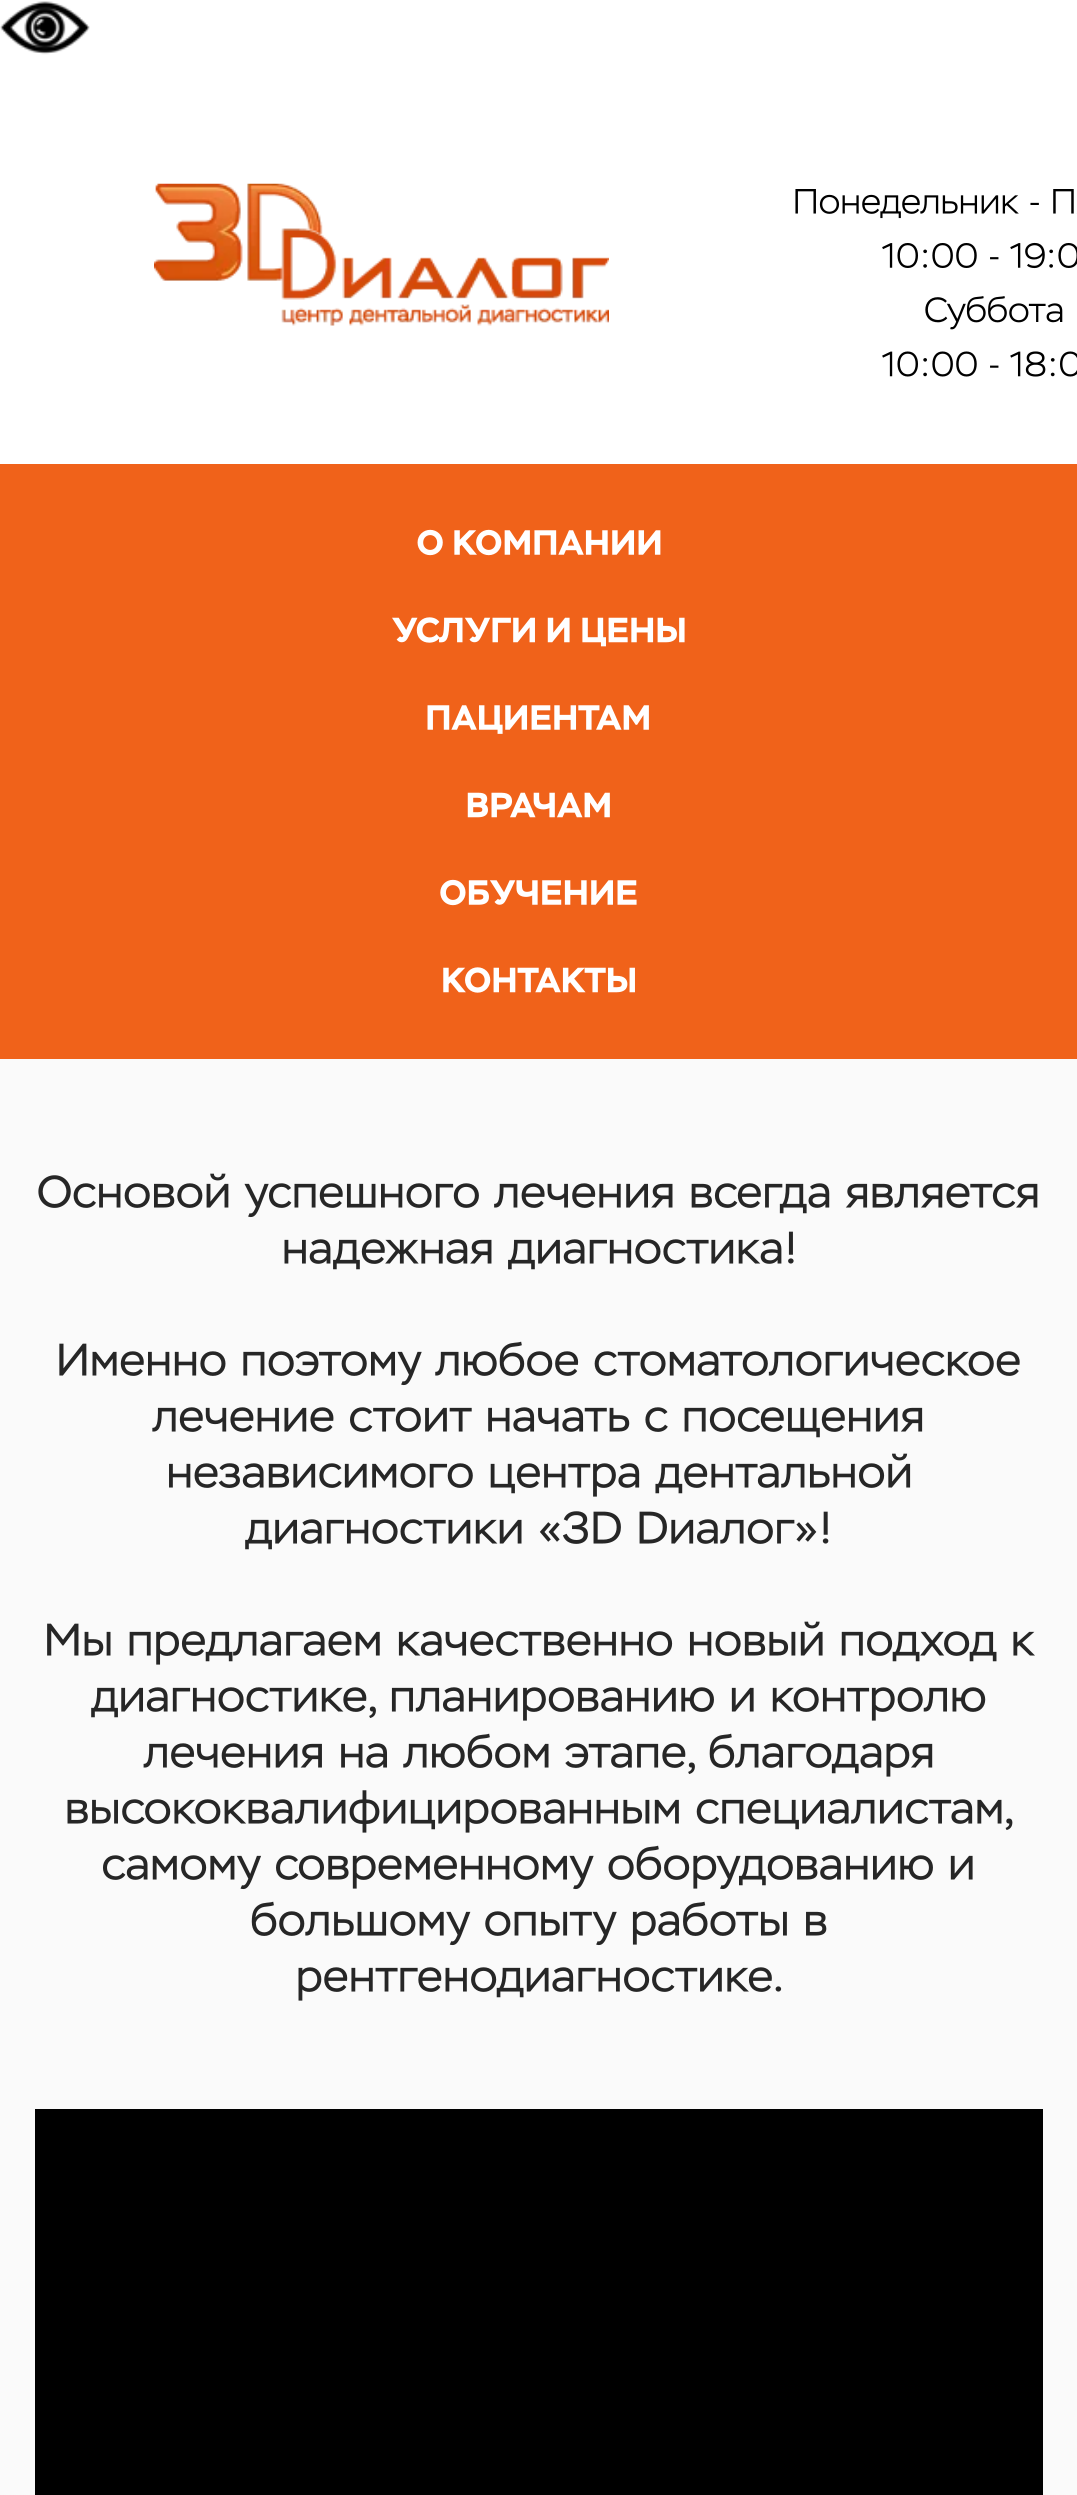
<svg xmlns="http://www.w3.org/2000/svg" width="1077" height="2495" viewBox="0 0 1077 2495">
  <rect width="100%" height="100%" fill="#ffffff"/>
  <image x="0" y="1" width="90" height="54" href="img1.png"/>
  <image x="154" y="183" width="455" height="143" href="img2.png"/>
  <image x="795" y="189" width="282" height="30" href="img3.png"/>
  <image x="882" y="242" width="195" height="27" href="img4.png"/>
  <image x="925" y="296" width="138" height="34" href="img5.png"/>
  <image x="882" y="351" width="195" height="26" href="img6.png"/>
  <rect x="0" y="464" width="1077" height="595" fill="#f0621a"/>
  <image x="417" y="529" width="244" height="27" href="img7.png"/>
  <image x="392" y="617" width="293" height="30" href="img8.png"/>
  <image x="427" y="705" width="222" height="29" href="img9.png"/>
  <image x="467" y="792" width="143" height="26" href="img10.png"/>
  <image x="440" y="879" width="197" height="27" href="img11.png"/>
  <image x="443" y="967" width="192" height="26" href="img12.png"/>
  <rect x="0" y="1059" width="1077" height="1436" fill="#fafafa"/>
  <image x="38" y="1173" width="1000" height="45" href="img13.png"/>
  <image x="284" y="1231" width="510" height="39" href="img14.png"/>
  <image x="59" y="1341" width="961" height="45" href="img15.png"/>
  <image x="152" y="1407" width="771" height="31" href="img16.png"/>
  <image x="169" y="1453" width="742" height="44" href="img17.png"/>
  <image x="245" y="1511" width="584" height="39" href="img18.png"/>
  <image x="47" y="1621" width="988" height="44" href="img19.png"/>
  <image x="91" y="1687" width="895" height="34" href="img20.png"/>
  <image x="143" y="1733" width="790" height="44" href="img21.png"/>
  <image x="67" y="1790" width="946" height="43" href="img22.png"/>
  <image x="103" y="1845" width="870" height="45" href="img23.png"/>
  <image x="251" y="1901" width="576" height="45" href="img24.png"/>
  <image x="298" y="1967" width="484" height="34" href="img25.png"/>
  <rect x="35" y="2109" width="1008" height="386" fill="#000000"/>
</svg>
